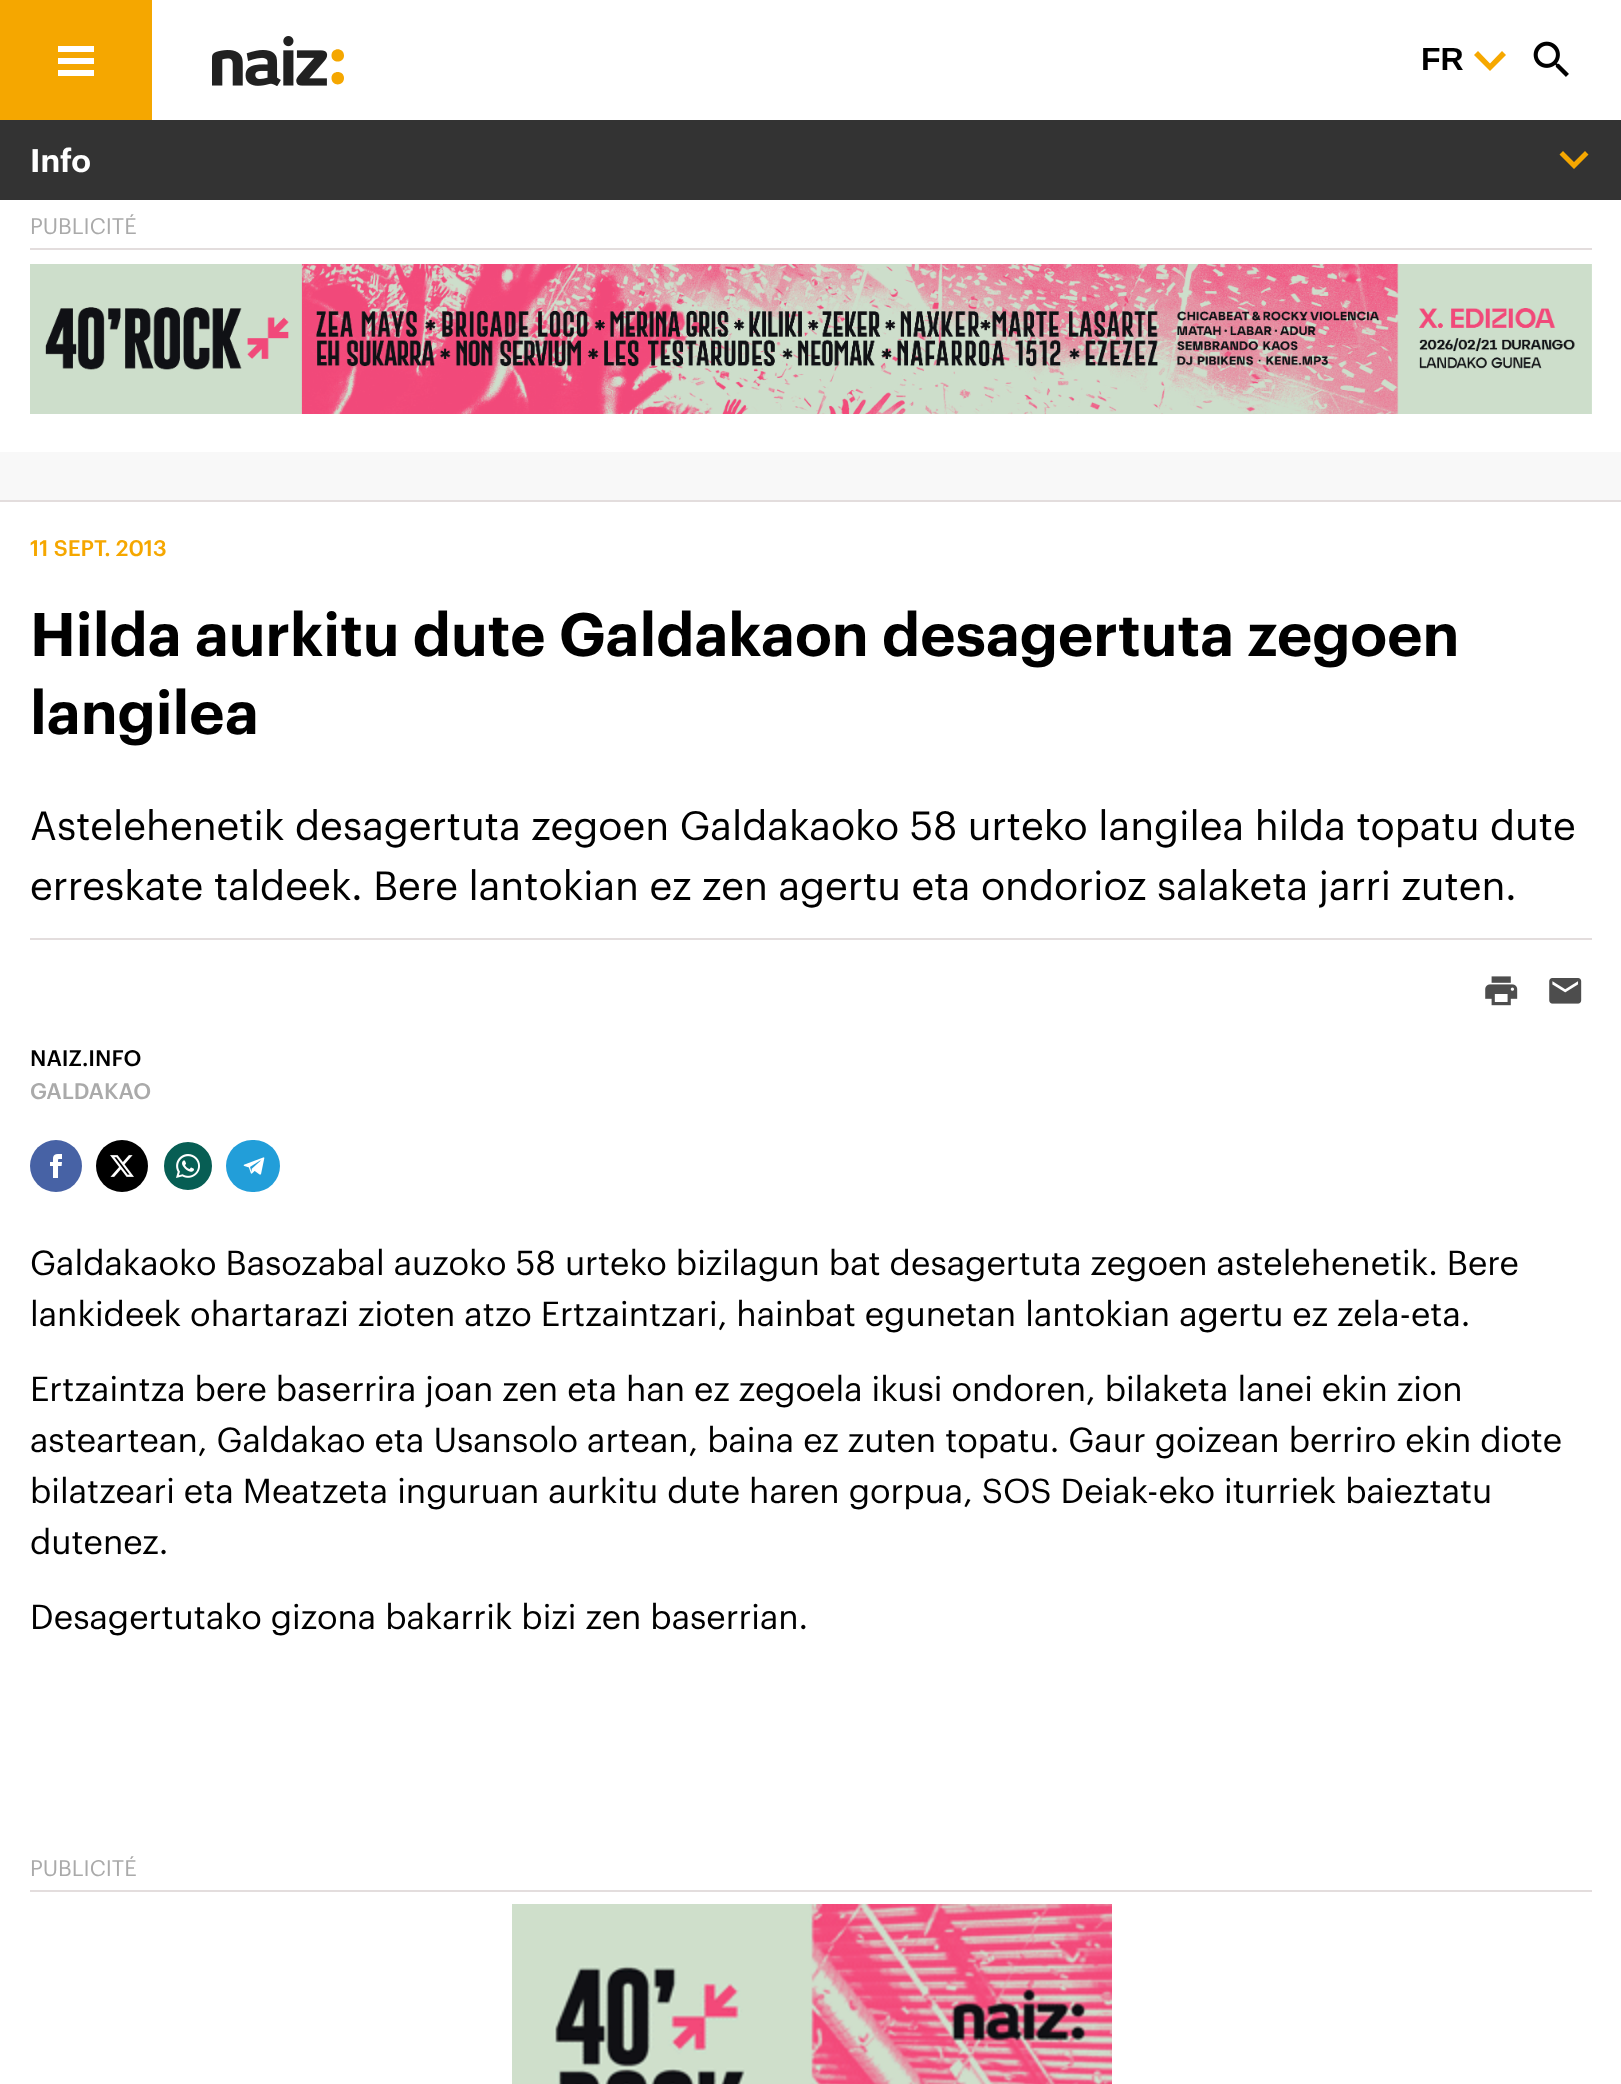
<svg xmlns="http://www.w3.org/2000/svg" width="1621" height="2084" viewBox="0 0 1621 2084">
  <rect width="100%" height="100%" fill="#ffffff"/>
  <rect x="0" y="0" width="152" height="120" fill="#f5a700"/>
  <rect x="58" y="58" width="36" height="6" fill="#ffffff"/>
  <rect x="58" y="46" width="36" height="6" fill="#ffffff"/>
  <rect x="58" y="70" width="36" height="6" fill="#ffffff"/>
  <image x="212" y="36" width="116" height="50" href="img1.png"/>
  <path d="M331.5 55.5C331.5 63.5 344 63.5 344 55.5C344 47 331.5 47 331.5 55.5ZM331.5 78C331.5 86.5 344 86.5 344 78C344 70 331.5 70 331.5 78Z" fill="#f5a700"/>
  <path d="M1502 51L1490 63.5L1478 51L1474 55L1490 71L1506 55Z" fill="#f6a800" fill-rule="evenodd"/>
  <text x="1421" y="70" font-family="Liberation Sans" font-size="32" font-weight="bold" fill="#000000">FR</text>
  <image x="1533" y="41" width="36" height="36" href="img2.png"/>
  <rect x="0" y="120" width="1621" height="80" fill="#333333"/>
  <text x="30" y="172" font-family="Graphik" font-size="32" font-weight="600" fill="#ffffff">Info</text>
  <path d="M1574 162L1563 151L1559.5 154.5L1574 169L1588.5 154.5L1585 151Z" fill="#f5a700"/>
  <rect x="30" y="248" width="1562" height="2" fill="#e3dddd"/>
  <text x="30" y="234" font-family="Graphik" font-size="22" fill="#aaaaaa">PUBLICITÉ</text>
  <image x="30" y="264" width="1562" height="150" href="img3.png"/>
  <rect x="0" y="452" width="1621" height="48" fill="#f8f8f8"/>
  <rect x="0" y="500" width="1621" height="2" fill="#e3dddd"/>
  <text x="30" y="556" font-family="Graphik" font-size="22" font-weight="500" fill="#f5a700">11 SEPT. 2013</text>
  <text x="30" y="656" font-family="Graphik" font-size="60" font-weight="600" fill="#000000">Hilda aurkitu dute Galdakaon desagertuta zegoen</text>
  <text x="30" y="734" font-family="Graphik" font-size="60" font-weight="600" fill="#000000">langilea</text>
  <rect x="30" y="938" width="1562" height="2" fill="#e3dddd"/>
  <text x="30" y="840" font-family="Graphik" font-size="40" fill="#000000">Astelehenetik desagertuta zegoen Galdakaoko 58 urteko langilea hilda topatu dute</text>
  <text x="30" y="900" font-family="Graphik" font-size="40" fill="#000000">erreskate taldeek. Bere lantokian ez zen agertu eta ondorioz salaketa jarri zuten.</text>
  <image x="1485" y="976" width="33" height="30" href="img4.png"/>
  <image x="1549" y="978" width="33" height="26" href="img5.png"/>
  <text x="30" y="1066" font-family="Graphik" font-size="22" font-weight="500" fill="#000000">NAIZ.INFO</text>
  <text x="30" y="1099" font-family="Graphik" font-size="22" font-weight="500" fill="#aaaaaa">GALDAKAO</text>
  <circle cx="56" cy="1166" r="26" fill="#4762a5"/>
  <image x="50" y="1154" width="12" height="24" href="img6.png"/>
  <circle cx="122" cy="1166" r="26" fill="#000000"/>
  <image x="110" y="1155" width="24" height="22" href="img7.png"/>
  <circle cx="188" cy="1166" r="25" fill="#075e54" stroke="#ffffff" stroke-width="2"/>
  <image x="176" y="1154" width="24" height="24" href="img8.png"/>
  <rect x="226" y="1140" width="54" height="52" rx="26" fill="#229ed9"/>
  <image x="243" y="1157" width="22" height="18" href="img9.png"/>
  <text x="30" y="1275" font-family="Graphik" font-size="34" fill="#000000">Galdakaoko Basozabal auzoko 58 urteko bizilagun bat desagertuta zegoen astelehenetik. Bere</text>
  <text x="30" y="1326" font-family="Graphik" font-size="34" fill="#000000">lankideek ohartarazi zioten atzo Ertzaintzari, hainbat egunetan lantokian agertu ez zela-eta.</text>
  <text x="30" y="1401" font-family="Graphik" font-size="34" fill="#000000">Ertzaintza bere baserrira joan zen eta han ez zegoela ikusi ondoren, bilaketa lanei ekin zion</text>
  <text x="30" y="1452" font-family="Graphik" font-size="34" fill="#000000">asteartean, Galdakao eta Usansolo artean, baina ez zuten topatu. Gaur goizean berriro ekin diote</text>
  <text x="30" y="1503" font-family="Graphik" font-size="34" fill="#000000">bilatzeari eta Meatzeta inguruan aurkitu dute haren gorpua, SOS Deiak-eko iturriek baieztatu</text>
  <text x="30" y="1554" font-family="Graphik" font-size="34" fill="#000000">dutenez.</text>
  <text x="30" y="1629" font-family="Graphik" font-size="34" fill="#000000">Desagertutako gizona bakarrik bizi zen baserrian.</text>
  <rect x="30" y="1890" width="1562" height="2" fill="#e3dddd"/>
  <text x="30" y="1876" font-family="Graphik" font-size="22" fill="#aaaaaa">PUBLICITÉ</text>
  <image x="512" y="1904" width="600" height="180" href="img10.png"/>
</svg>
